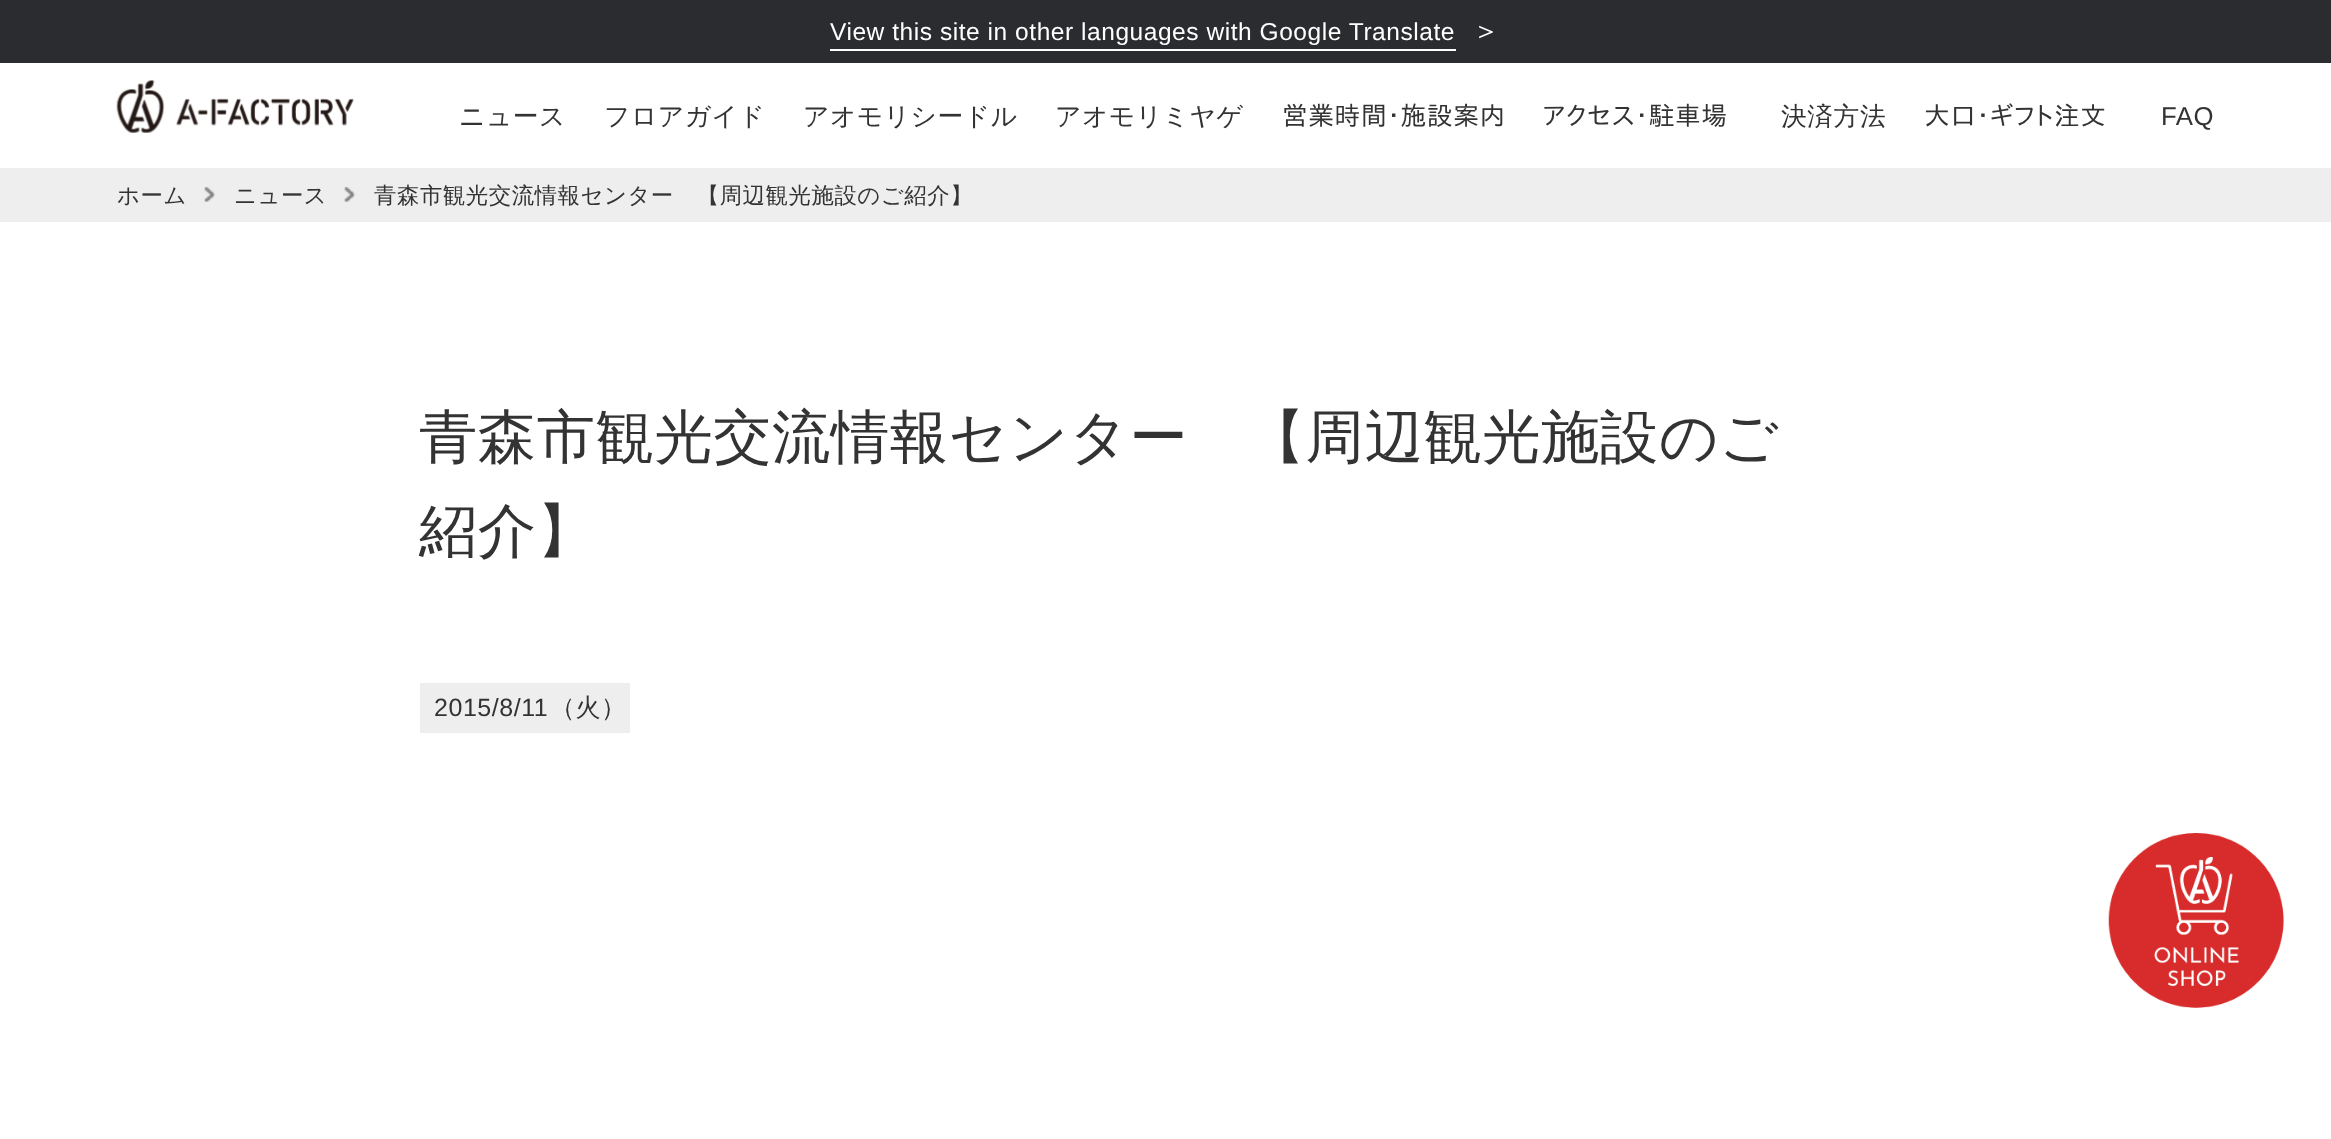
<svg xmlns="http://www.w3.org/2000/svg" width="2331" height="1139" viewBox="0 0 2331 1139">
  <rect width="100%" height="100%" fill="#ffffff"/>
  <rect x="0" y="0" width="2331" height="63" fill="#2b2c2f"/>
  <text x="830" y="40" font-family="Liberation Sans" font-size="24.5" letter-spacing="0.55" fill="#ffffff">View this site in other languages with Google Translate</text>
  <rect x="830" y="49" width="626" height="2" fill="#ffffff"/>
  <text x="1472" y="40" font-family="WenQuanYi Zen Hei" font-size="28" font-weight="500" letter-spacing="0.55" fill="#ffffff">＞</text>
  <image x="116" y="80" width="238" height="53" href="img1.png"/>
  <text x="459" y="125" font-family="WenQuanYi Zen Hei" font-size="25.75" font-weight="500" letter-spacing="0.55" fill="#333333">ニュース</text>
  <text x="604" y="125" font-family="WenQuanYi Zen Hei" font-size="25.75" font-weight="500" letter-spacing="0.55" fill="#333333">フロアガイド</text>
  <text x="803" y="125" font-family="WenQuanYi Zen Hei" font-size="25.75" font-weight="500" letter-spacing="0.55" fill="#333333">アオモリシードル</text>
  <text x="1055" y="125" font-family="WenQuanYi Zen Hei" font-size="25.75" font-weight="500" letter-spacing="0.55" fill="#333333">アオモリミヤゲ</text>
  <text x="1282" y="125" font-family="IPAPGothic" font-size="25.75" letter-spacing="0.55" fill="#333333">営業時間･施設案内</text>
  <text x="1543" y="125" font-family="IPAPGothic" font-size="25.75" letter-spacing="0.55" fill="#333333">アクセス･駐車場</text>
  <text x="1781" y="125" font-family="WenQuanYi Zen Hei" font-size="25.75" font-weight="500" letter-spacing="0.55" fill="#333333">決済方法</text>
  <text x="1924" y="125" font-family="IPAPGothic" font-size="25.75" letter-spacing="0.55" fill="#333333">大口･ギフト注文</text>
  <text x="2161" y="125" font-family="Liberation Sans" font-size="25.75" letter-spacing="0.55" fill="#333333">FAQ</text>
  <rect x="0" y="168" width="2331" height="54" fill="#eeeeee"/>
  <image x="204" y="187" width="12" height="15" href="img2.png"/>
  <text x="117" y="203" font-family="WenQuanYi Zen Hei" font-size="22.4" font-weight="500" letter-spacing="0.55" fill="#333333">ホーム</text>
  <image x="344" y="187" width="12" height="15" href="img2.png"/>
  <text x="234" y="203" font-family="WenQuanYi Zen Hei" font-size="22.4" font-weight="500" letter-spacing="0.55" fill="#333333">ニュース</text>
  <text x="374" y="203" font-family="WenQuanYi Zen Hei" font-size="22.4" font-weight="500" letter-spacing="0.55" fill="#333333">青森市観光交流情報センター　【周辺観光施設のご紹介】</text>
  <text x="419" y="457" font-family="WenQuanYi Zen Hei" font-size="58.3" font-weight="500" letter-spacing="0.55" fill="#333333">青森市観光交流情報センター　【周辺観光施設のご</text>
  <text x="419" y="551" font-family="WenQuanYi Zen Hei" font-size="58.3" font-weight="500" letter-spacing="0.55" fill="#333333">紹介】</text>
  <rect x="420" y="683" width="210" height="50" fill="#eeeeee"/>
  <text x="434" y="716" font-family="Liberation Sans" font-size="25" letter-spacing="0.55" fill="#333333">2015/8/11</text>
  <text x="550" y="716" font-family="WenQuanYi Zen Hei" font-size="25" font-weight="500" letter-spacing="0.55" fill="#333333">（火）</text>
  <image x="2108" y="833" width="176" height="175" href="img3.png"/>
</svg>
